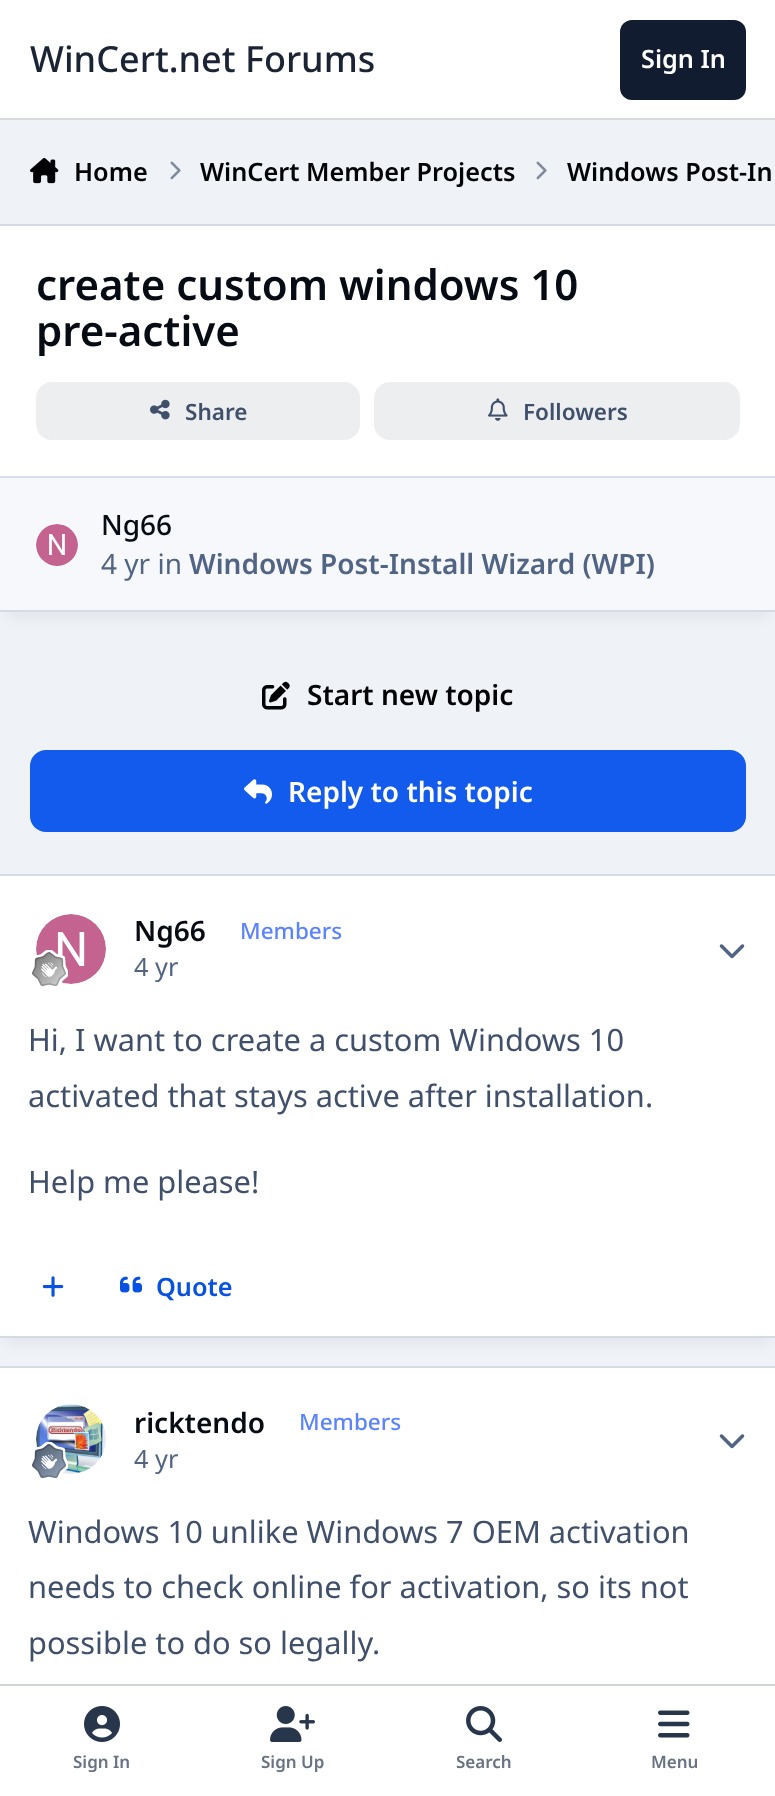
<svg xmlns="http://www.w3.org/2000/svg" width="775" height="1796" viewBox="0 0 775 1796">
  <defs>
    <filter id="blur1" x="-50%" y="-200%" width="200%" height="500%"><feGaussianBlur stdDeviation="7"/></filter>
  </defs>
  <rect width="100%" height="100%" fill="#eff2f7"/>
  <rect x="0" y="0" width="775" height="118" fill="#ffffff"/>
  <rect x="0" y="118" width="775" height="2" fill="#dadadc"/>
  <text x="30" y="72" font-family="Noto Sans" font-size="36" font-weight="500" fill="#1b2434">WinCert.net Forums</text>
  <rect x="620" y="20" width="126" height="80" rx="12" fill="#111c31"/>
  <text x="641" y="68" font-family="Noto Sans" font-size="25.25" font-weight="600" fill="#ffffff">Sign In</text>
  <image x="30" y="158" width="29" height="26" href="img1.png"/>
  <text x="74" y="181" font-family="Noto Sans" font-size="25.25" font-weight="600" fill="#020305">Home</text>
  <image x="170" y="161" width="11" height="19" href="img2.png"/>
  <text x="200" y="181" font-family="Noto Sans" font-size="25.25" font-weight="600" fill="#020305">WinCert Member Projects</text>
  <image x="536" y="161" width="11" height="19" href="img2.png"/>
  <text x="567" y="181" font-family="Noto Sans" font-size="25.25" font-weight="600" fill="#020305">Windows Post-In</text>
  <rect x="6" y="242" width="764" height="376" fill="#01030a" fill-opacity="0.05" filter="url(#blur1)"/>
  <rect x="0" y="226" width="775" height="250" fill="#ffffff"/>
  <rect x="0" y="224" width="775" height="2" fill="#d5dbe6"/>
  <rect x="0" y="610" width="775" height="2" fill="#d5dbe6"/>
  <text x="36" y="300" font-family="Noto Sans" font-size="42" font-weight="600" fill="#060b14">create custom windows 10</text>
  <text x="36" y="346" font-family="Noto Sans" font-size="42" font-weight="600" fill="#060b14">pre-active</text>
  <rect x="36" y="382" width="324" height="58" rx="16" fill="#eceef0"/>
  <image x="150" y="399" width="20" height="21" href="img3.png"/>
  <text x="185" y="420" font-family="Noto Sans" font-size="22.5" font-weight="600" fill="#40506b">Share</text>
  <rect x="374" y="382" width="366" height="58" rx="16" fill="#eceef0"/>
  <image x="488" y="398" width="20" height="23" href="img4.png"/>
  <text x="523" y="420" font-family="Noto Sans" font-size="22.5" font-weight="600" fill="#40506b">Followers</text>
  <rect x="0" y="478" width="775" height="132" fill="#f7f8fb"/>
  <rect x="0" y="476" width="775" height="2" fill="#d7dfea"/>
  <circle cx="57" cy="545" r="21" fill="#e5eaf2"/>
  <image x="36" y="524" width="42" height="42" href="img5.png"/>
  <text x="101" y="535" font-family="Noto Sans" font-size="28" font-weight="500" fill="#060b14">Ng66</text>
  <text x="101" y="574" font-family="Noto Sans" font-size="28" fill="#516483">4 yr in</text>
  <text x="189" y="574" font-family="Noto Sans" font-size="28" font-weight="600" fill="#516483">Windows Post-Install Wizard (WPI)</text>
  <image x="262" y="681" width="28" height="29" href="img6.png"/>
  <text x="307" y="705" font-family="Noto Sans" font-size="28" font-weight="600" fill="#020305">Start new topic</text>
  <rect x="30" y="750" width="716" height="82" rx="16" fill="#135bec"/>
  <image x="244" y="779" width="28" height="25" href="img7.png"/>
  <text x="288" y="802" font-family="Noto Sans" font-size="28" font-weight="600" fill="#ffffff">Reply to this topic</text>
  <rect x="6" y="892" width="764" height="452" fill="#01030a" fill-opacity="0.05" filter="url(#blur1)"/>
  <rect x="0" y="876" width="775" height="460" fill="#ffffff"/>
  <rect x="0" y="874" width="775" height="2" fill="#d5dbe6"/>
  <rect x="0" y="1336" width="775" height="2" fill="#d5dbe6"/>
  <circle cx="71" cy="949" r="35" fill="#e5eaf2"/>
  <image x="36" y="914" width="70" height="70" href="img8.png"/>
  <image x="32" y="950" width="36" height="36" href="img9.png"/>
  <text x="134" y="941" font-family="Noto Sans" font-size="28" font-weight="600" fill="#060b14">Ng66</text>
  <text x="240" y="939" font-family="Noto Sans" font-size="22.5" font-weight="500" fill="#5c83fe">Members</text>
  <text x="134" y="976" font-family="Noto Sans" font-size="25.25" fill="#516483">4 yr</text>
  <image x="719" y="944" width="26" height="15" href="img10.png"/>
  <text x="28" y="1051" font-family="Noto Sans" font-size="30.8" fill="#40506b">Hi, I want to create a custom Windows 10</text>
  <text x="28" y="1107" font-family="Noto Sans" font-size="30.8" fill="#40506b">activated that stays active after installation.</text>
  <text x="28" y="1193" font-family="Noto Sans" font-size="30.8" fill="#40506b">Help me please!</text>
  <image x="42" y="1276" width="22" height="21" href="img11.png"/>
  <image x="120" y="1276" width="23" height="17" href="img12.png"/>
  <text x="156" y="1296" font-family="Noto Sans" font-size="25.25" font-weight="600" fill="#0752e2">Quote</text>
  <rect x="0" y="1368" width="775" height="316" fill="#ffffff"/>
  <rect x="0" y="1366" width="775" height="2" fill="#d5dbe6"/>
  <circle cx="71" cy="1439" r="35" fill="#e5eaf2"/>
  <image x="36" y="1405" width="67" height="68" href="img13.png"/>
  <image x="32" y="1442" width="36" height="36" href="img14.png"/>
  <text x="134" y="1433" font-family="Noto Sans" font-size="28" font-weight="600" fill="#060b14">ricktendo</text>
  <text x="299" y="1430" font-family="Noto Sans" font-size="22.5" font-weight="500" fill="#5c83fe">Members</text>
  <text x="134" y="1468" font-family="Noto Sans" font-size="25.25" fill="#516483">4 yr</text>
  <image x="719" y="1434" width="26" height="15" href="img10.png"/>
  <text x="28" y="1543" font-family="Noto Sans" font-size="30.8" fill="#40506b">Windows 10 unlike Windows 7 OEM activation</text>
  <text x="28" y="1598" font-family="Noto Sans" font-size="30.8" fill="#40506b">needs to check online for activation, so its not</text>
  <text x="28" y="1654" font-family="Noto Sans" font-size="30.8" fill="#40506b">possible to do so legally.</text>
  <rect x="0" y="1684" width="775" height="2" fill="#cfd3da"/>
  <rect x="0" y="1686" width="775" height="110" fill="#ffffff"/>
  <image x="84" y="1706" width="36" height="36" href="img15.png"/>
  <text x="73" y="1768" font-family="Noto Sans" font-size="17" font-weight="600" fill="#697282">Sign In</text>
  <image x="270" y="1706" width="45" height="36" href="img16.png"/>
  <text x="261" y="1768" font-family="Noto Sans" font-size="17" font-weight="600" fill="#697282">Sign Up</text>
  <image x="466" y="1706" width="36" height="36" href="img17.png"/>
  <text x="456" y="1768" font-family="Noto Sans" font-size="17" font-weight="600" fill="#697282">Search</text>
  <image x="658" y="1710" width="32" height="28" href="img18.png"/>
  <text x="651" y="1768" font-family="Noto Sans" font-size="17" font-weight="600" fill="#697282">Menu</text>
</svg>
